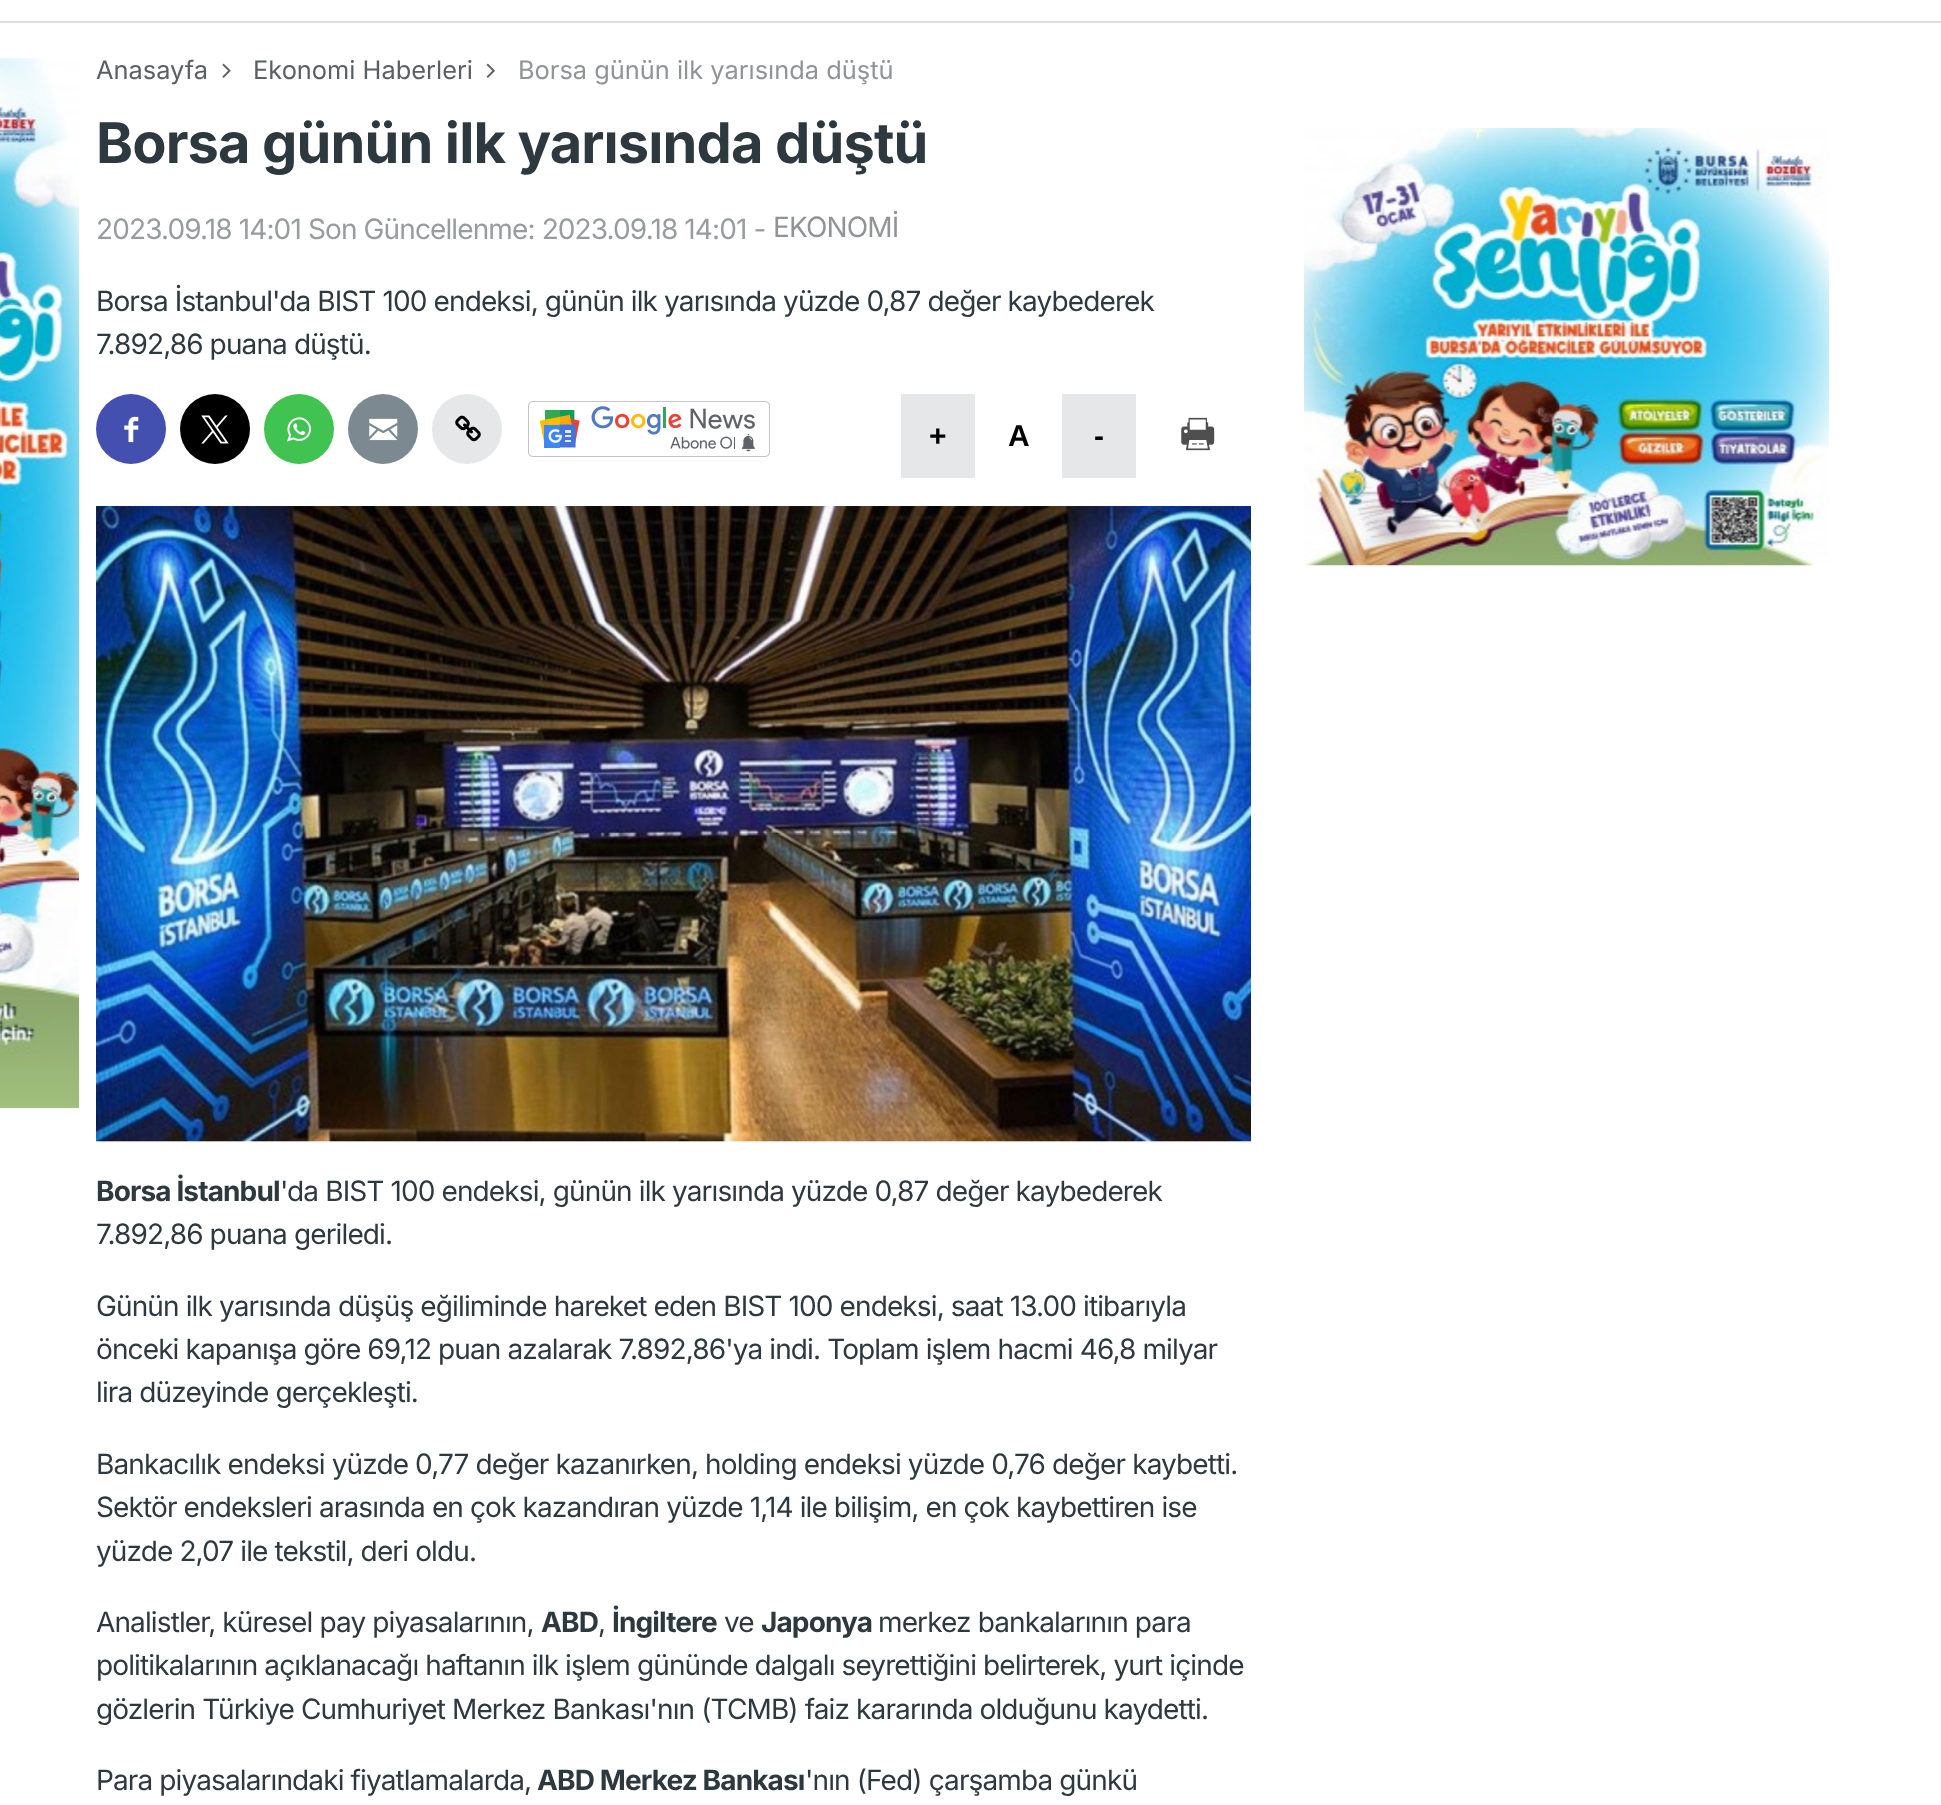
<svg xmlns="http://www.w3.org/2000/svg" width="1941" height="1805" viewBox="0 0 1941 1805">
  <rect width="100%" height="100%" fill="#ffffff"/>
  <rect x="0" y="21" width="1941" height="2" fill="#dddddd"/>
  <image x="0" y="58" width="79" height="1050" href="img1.png"/>
  <text x="96" y="79" font-family="Inter" font-size="25.4" fill="#5a5f62">Anasayfa</text>
  <image x="222" y="63" width="9" height="15" href="img2.png"/>
  <text x="253" y="79" font-family="Inter" font-size="25.4" fill="#5a5f62">Ekonomi Haberleri</text>
  <image x="486" y="63" width="9" height="15" href="img3.png"/>
  <text x="518" y="79" font-family="Inter" font-size="25.4" fill="#919496">Borsa günün ilk yarısında düştü</text>
  <text x="96" y="163" font-family="Inter" font-size="56" font-weight="bold" letter-spacing="-0.88" fill="#2e393f">Borsa günün ilk yarısında düştü</text>
  <text x="96" y="239" font-family="Inter" font-size="28" letter-spacing="-0.88" fill="#979c9f">2023.09.18 14:01 Son Güncellenme: 2023.09.18 14:01 -</text>
  <text x="773" y="237" font-family="Inter" font-size="28" letter-spacing="-0.88" fill="#919496">EKONOMİ</text>
  <text x="96" y="311" font-family="Inter" font-size="28" letter-spacing="-0.88" fill="#2e393f">Borsa İstanbul'da BIST 100 endeksi, günün ilk yarısında yüzde 0,87 değer kaybederek</text>
  <text x="96" y="354" font-family="Inter" font-size="28" letter-spacing="-0.88" fill="#2e393f">7.892,86 puana düştü.</text>
  <circle cx="131" cy="429" r="35" fill="#4350af"/>
  <image x="124" y="416" width="15" height="27" href="img4.png"/>
  <circle cx="215" cy="429" r="35" fill="#000000"/>
  <image x="201" y="415" width="28" height="29" href="img5.png"/>
  <circle cx="299" cy="429" r="35" fill="#40c351"/>
  <image x="287" y="417" width="24" height="25" href="img6.png"/>
  <circle cx="383" cy="429" r="35" fill="#7c8991"/>
  <image x="369" y="418" width="29" height="23" href="img7.png"/>
  <circle cx="467" cy="429" r="35" fill="#e5e7e9"/>
  <image x="455" y="415" width="26" height="27" href="img8.png"/>
  <image x="528" y="401" width="242" height="56" href="img9.png"/>
  <rect x="901" y="394" width="74" height="84" fill="#e5e7e9"/>
  <text x="929" y="446" font-family="Liberation Sans" font-size="30" font-weight="bold" fill="#000000">+</text>
  <text x="1008" y="446" font-family="Liberation Sans" font-size="30" font-weight="bold" fill="#000000">A</text>
  <rect x="1062" y="394" width="74" height="84" fill="#e5e7e9"/>
  <text x="1094" y="446" font-family="Liberation Sans" font-size="30" font-weight="bold" fill="#000000">-</text>
  <image x="1181" y="417" width="34" height="34" href="img10.png"/>
  <image x="96" y="506" width="1155" height="636" href="img11.png"/>
  <text x="96" y="1201" font-family="Inter" font-size="28" font-weight="bold" letter-spacing="-0.88" fill="#2e393f">Borsa İstanbul</text>
  <text x="280" y="1201" font-family="Inter" font-size="28" letter-spacing="-0.88" fill="#2e393f">'da BIST 100 endeksi, günün ilk yarısında yüzde 0,87 değer kaybederek</text>
  <text x="96" y="1244" font-family="Inter" font-size="28" letter-spacing="-0.88" fill="#2e393f">7.892,86 puana geriledi.</text>
  <text x="96" y="1316" font-family="Inter" font-size="28" letter-spacing="-0.88" fill="#2e393f">Günün ilk yarısında düşüş eğiliminde hareket eden BIST 100 endeksi, saat 13.00 itibarıyla</text>
  <text x="96" y="1359" font-family="Inter" font-size="28" letter-spacing="-0.88" fill="#2e393f">önceki kapanışa göre 69,12 puan azalarak 7.892,86'ya indi. Toplam işlem hacmi 46,8 milyar</text>
  <text x="96" y="1402" font-family="Inter" font-size="28" letter-spacing="-0.88" fill="#2e393f">lira düzeyinde gerçekleşti.</text>
  <text x="96" y="1474" font-family="Inter" font-size="28" letter-spacing="-0.88" fill="#2e393f">Bankacılık endeksi yüzde 0,77 değer kazanırken, holding endeksi yüzde 0,76 değer kaybetti.</text>
  <text x="96" y="1517" font-family="Inter" font-size="28" letter-spacing="-0.88" fill="#2e393f">Sektör endeksleri arasında en çok kazandıran yüzde 1,14 ile bilişim, en çok kaybettiren ise</text>
  <text x="96" y="1561" font-family="Inter" font-size="28" letter-spacing="-0.88" fill="#2e393f">yüzde 2,07 ile tekstil, deri oldu.</text>
  <text x="96" y="1632" font-family="Inter" font-size="28" letter-spacing="-0.88" fill="#2e393f">Analistler, küresel pay piyasalarının,</text>
  <text x="541" y="1632" font-family="Inter" font-size="28" font-weight="bold" letter-spacing="-0.88" fill="#2e393f">ABD</text>
  <text x="598" y="1632" font-family="Inter" font-size="28" letter-spacing="-0.88" fill="#2e393f">,</text>
  <text x="612" y="1632" font-family="Inter" font-size="28" font-weight="bold" letter-spacing="-0.88" fill="#2e393f">İngiltere</text>
  <text x="724" y="1632" font-family="Inter" font-size="28" letter-spacing="-0.88" fill="#2e393f">ve</text>
  <text x="761" y="1632" font-family="Inter" font-size="28" font-weight="bold" letter-spacing="-0.88" fill="#2e393f">Japonya</text>
  <text x="878" y="1632" font-family="Inter" font-size="28" letter-spacing="-0.88" fill="#2e393f">merkez bankalarının para</text>
  <text x="96" y="1675" font-family="Inter" font-size="28" letter-spacing="-0.88" fill="#2e393f">politikalarının açıklanacağı haftanın ilk işlem gününde dalgalı seyrettiğini belirterek, yurt içinde</text>
  <text x="96" y="1719" font-family="Inter" font-size="28" letter-spacing="-0.88" fill="#2e393f">gözlerin Türkiye Cumhuriyet Merkez Bankası'nın (TCMB) faiz kararında olduğunu kaydetti.</text>
  <text x="96" y="1790" font-family="Inter" font-size="28" letter-spacing="-0.88" fill="#2e393f">Para piyasalarındaki fiyatlamalarda,</text>
  <text x="537" y="1790" font-family="Inter" font-size="28" font-weight="bold" letter-spacing="-0.88" fill="#2e393f">ABD Merkez Bankası</text>
  <text x="805" y="1790" font-family="Inter" font-size="28" letter-spacing="-0.88" fill="#2e393f">'nın (Fed) çarşamba günkü</text>
  <image x="1304" y="128" width="525" height="438" href="img12.png"/>
</svg>
